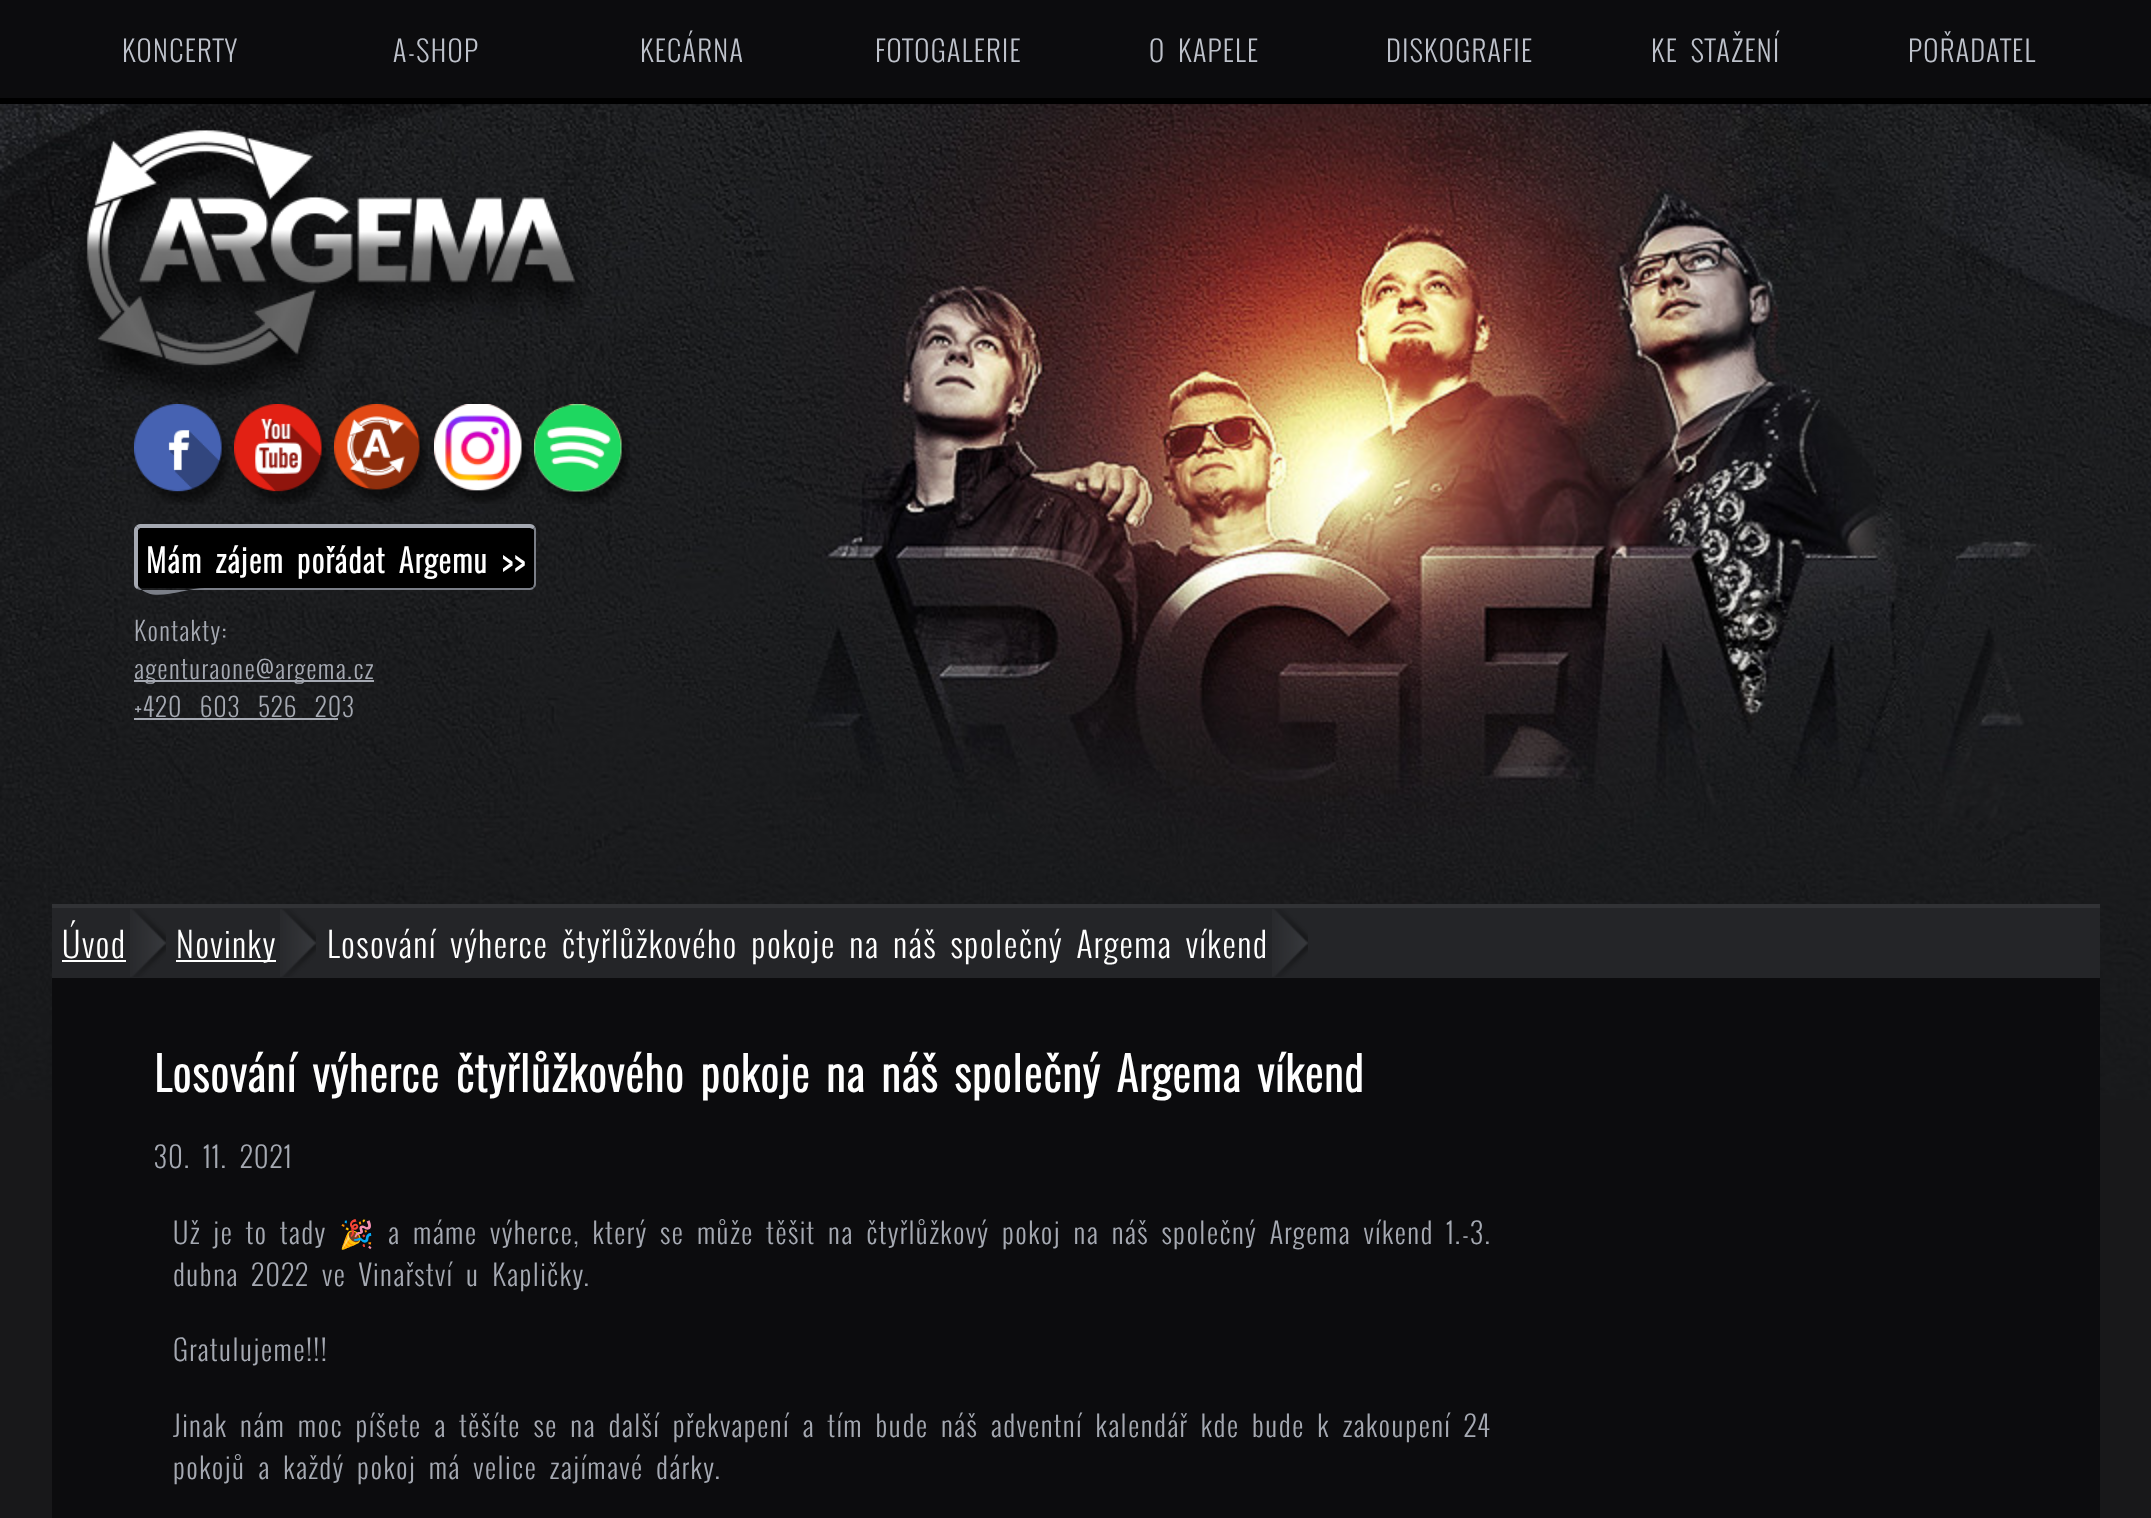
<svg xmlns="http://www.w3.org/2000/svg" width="2151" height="1518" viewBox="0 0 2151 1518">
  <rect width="100%" height="100%" fill="#18181a"/>
  <image x="0" y="104" width="2151" height="996" href="img1.png"/>
  <rect x="0" y="0" width="2151" height="98" fill="#0c0c0e"/>
  <rect x="0" y="98" width="2151" height="6" fill="#000000"/>
  <text x="122" y="62" font-family="Oswald" font-size="28" font-weight="300" letter-spacing="1.4" fill="#bec2cb">KONCERTY</text>
  <text x="393" y="62" font-family="Oswald" font-size="28" font-weight="300" letter-spacing="1.4" fill="#bec2cb">A-SHOP</text>
  <text x="640" y="62" font-family="Oswald" font-size="28" font-weight="300" letter-spacing="1.4" fill="#bec2cb">KECÁRNA</text>
  <text x="875" y="62" font-family="Oswald" font-size="28" font-weight="300" letter-spacing="1.4" fill="#bec2cb">FOTOGALERIE</text>
  <text x="1149" y="62" word-spacing="5.6" font-family="Oswald" font-size="28" font-weight="300" letter-spacing="1.4" fill="#bec2cb">O KAPELE</text>
  <text x="1386" y="62" font-family="Oswald" font-size="28" font-weight="300" letter-spacing="1.4" fill="#bec2cb">DISKOGRAFIE</text>
  <text x="1651" y="62" word-spacing="5.6" font-family="Oswald" font-size="28" font-weight="300" letter-spacing="1.4" fill="#bec2cb">KE STAŽENÍ</text>
  <text x="1908" y="62" font-family="Oswald" font-size="28" font-weight="300" letter-spacing="1.4" fill="#bec2cb">POŘADATEL</text>
  <image x="74" y="130" width="508" height="270" href="img2.png"/>
  <image x="134" y="404" width="96" height="101" href="img3.png"/>
  <image x="234" y="404" width="96" height="100" href="img4.png"/>
  <image x="334" y="404" width="94" height="99" href="img5.png"/>
  <image x="434" y="404" width="96" height="100" href="img6.png"/>
  <image x="534" y="404" width="96" height="100" href="img7.png"/>
  <path d="M140 528H530C532 528 534 529 534 530V584C534 586 532 588 530 588H140C139 588 138 586 138 584V530C138 529 139 528 140 528Z" fill="#000000"/>
  <path d="M140 524C138 524 137 525 136 526L139 529L140 528H530L533 529L535 527C534 525 532 524 530 524Z" fill="#a5a9b2"/>
  <path d="M536 584V530C536 529 536 528 535 527L533 529L534 530V584L533 587L534 588C535 587 536 586 536 584Z" fill="#7b7f88"/>
  <path d="M140 590H530C532 590 533 589 534 588L533 587L530 588H205C183 588 153 604 139 587L137 589Z" fill="#7b7f88"/>
  <path d="M134 530V584C134 586 135 588 137 589L139 587C138 587 138 585 138 584V530L139 529L136 526C135 527 134 528 134 530Z" fill="#a5a9b2"/>
  <text x="146" y="573" word-spacing="5.6" font-family="Oswald" font-size="30.75" font-weight="bold" letter-spacing="1.4" fill="#ffffff">Mám zájem pořádat Argemu &gt;&gt;</text>
  <text x="134" y="641" font-family="Oswald" font-size="25.25" font-weight="300" letter-spacing="1.4" fill="#a5a9b2">Kontakty:</text>
  <rect x="134" y="680" width="240" height="2" fill="#a5a9b2"/>
  <text x="134" y="679" font-family="Oswald" font-size="25.25" font-weight="300" letter-spacing="1.4" fill="#a5a9b2">agenturaone@argema.cz</text>
  <text x="134" y="717" font-family="Oswald" font-size="25.25" font-weight="300" letter-spacing="1.4" fill="#a5a9b2">+420</text>
  <text x="200" y="717" font-family="Oswald" font-size="25.25" font-weight="300" letter-spacing="1.4" fill="#a5a9b2">603</text>
  <text x="258" y="717" font-family="Oswald" font-size="25.25" font-weight="300" letter-spacing="1.4" fill="#a5a9b2">526</text>
  <text x="315" y="717" font-family="Oswald" font-size="25.25" font-weight="300" letter-spacing="1.4" fill="#a5a9b2">203</text>
  <rect x="134" y="718" width="204" height="2" fill="#a5a9b2"/>
  <rect x="52" y="908" width="2048" height="70" fill="#242528"/>
  <rect x="52" y="904" width="2048" height="4" fill="#313235"/>
  <image x="130" y="909" width="36" height="68" href="img8.png"/>
  <text x="62" y="958" font-family="Oswald" font-size="33.6" font-weight="300" letter-spacing="1.4" fill="#ffffff">Úvod</text>
  <rect x="62" y="960" width="64" height="2" fill="#ffffff"/>
  <image x="280" y="909" width="36" height="68" href="img8.png"/>
  <rect x="176" y="960" width="100" height="2" fill="#ffffff"/>
  <text x="176" y="958" font-family="Oswald" font-size="33.6" font-weight="300" letter-spacing="1.4" fill="#ffffff">Novinky</text>
  <image x="1272" y="909" width="36" height="68" href="img8.png"/>
  <text x="327" y="958" word-spacing="5.5" font-family="Oswald" font-size="33.6" font-weight="300" letter-spacing="1.4" fill="#ffffff">Losování výherce čtyřlůžkového pokoje na náš společný Argema víkend</text>
  <rect x="52" y="978" width="2048" height="540" fill="#0c0c0e"/>
  <text x="154" y="1092" word-spacing="5.6" font-family="Oswald" font-size="44.8" font-weight="bold" letter-spacing="1.4" fill="#ffffff">Losování výherce čtyřlůžkového pokoje na náš společný Argema víkend</text>
  <text x="154" y="1168" word-spacing="5.6" font-family="Oswald" font-size="28" font-weight="300" letter-spacing="1.4" fill="#a5a9b2">30. 11. 2021</text>
  <text x="173" y="1244" word-spacing="5.6" font-family="Oswald" font-size="28" font-weight="300" letter-spacing="1.4" fill="#a5a9b2">Už je to tady</text>
  <text x="339" y="1244" font-family="Noto Color Emoji" font-size="28" letter-spacing="1.4" fill="#a5a9b2">🎉</text>
  <text x="388" y="1244" word-spacing="5.6" font-family="Oswald" font-size="28" font-weight="300" letter-spacing="1.4" fill="#a5a9b2">a máme výherce, který se může těšit na čtyřlůžkový pokoj na náš společný Argema víkend 1.-3.</text>
  <text x="173" y="1286" word-spacing="5.6" font-family="Oswald" font-size="28" font-weight="300" letter-spacing="1.4" fill="#a5a9b2">dubna 2022 ve Vinařství u Kapličky.</text>
  <text x="173" y="1361" font-family="Oswald" font-size="28" font-weight="300" letter-spacing="1.4" fill="#a5a9b2">Gratulujeme!!!</text>
  <text x="173" y="1437" word-spacing="5.6" font-family="Oswald" font-size="28" font-weight="300" letter-spacing="1.4" fill="#a5a9b2">Jinak nám moc píšete a těšíte se na další překvapení a tím bude náš adventní kalendář kde bude k zakoupení 24</text>
  <text x="173" y="1479" word-spacing="5.6" font-family="Oswald" font-size="28" font-weight="300" letter-spacing="1.4" fill="#a5a9b2">pokojů a každý pokoj má velice zajímavé dárky.</text>
</svg>
